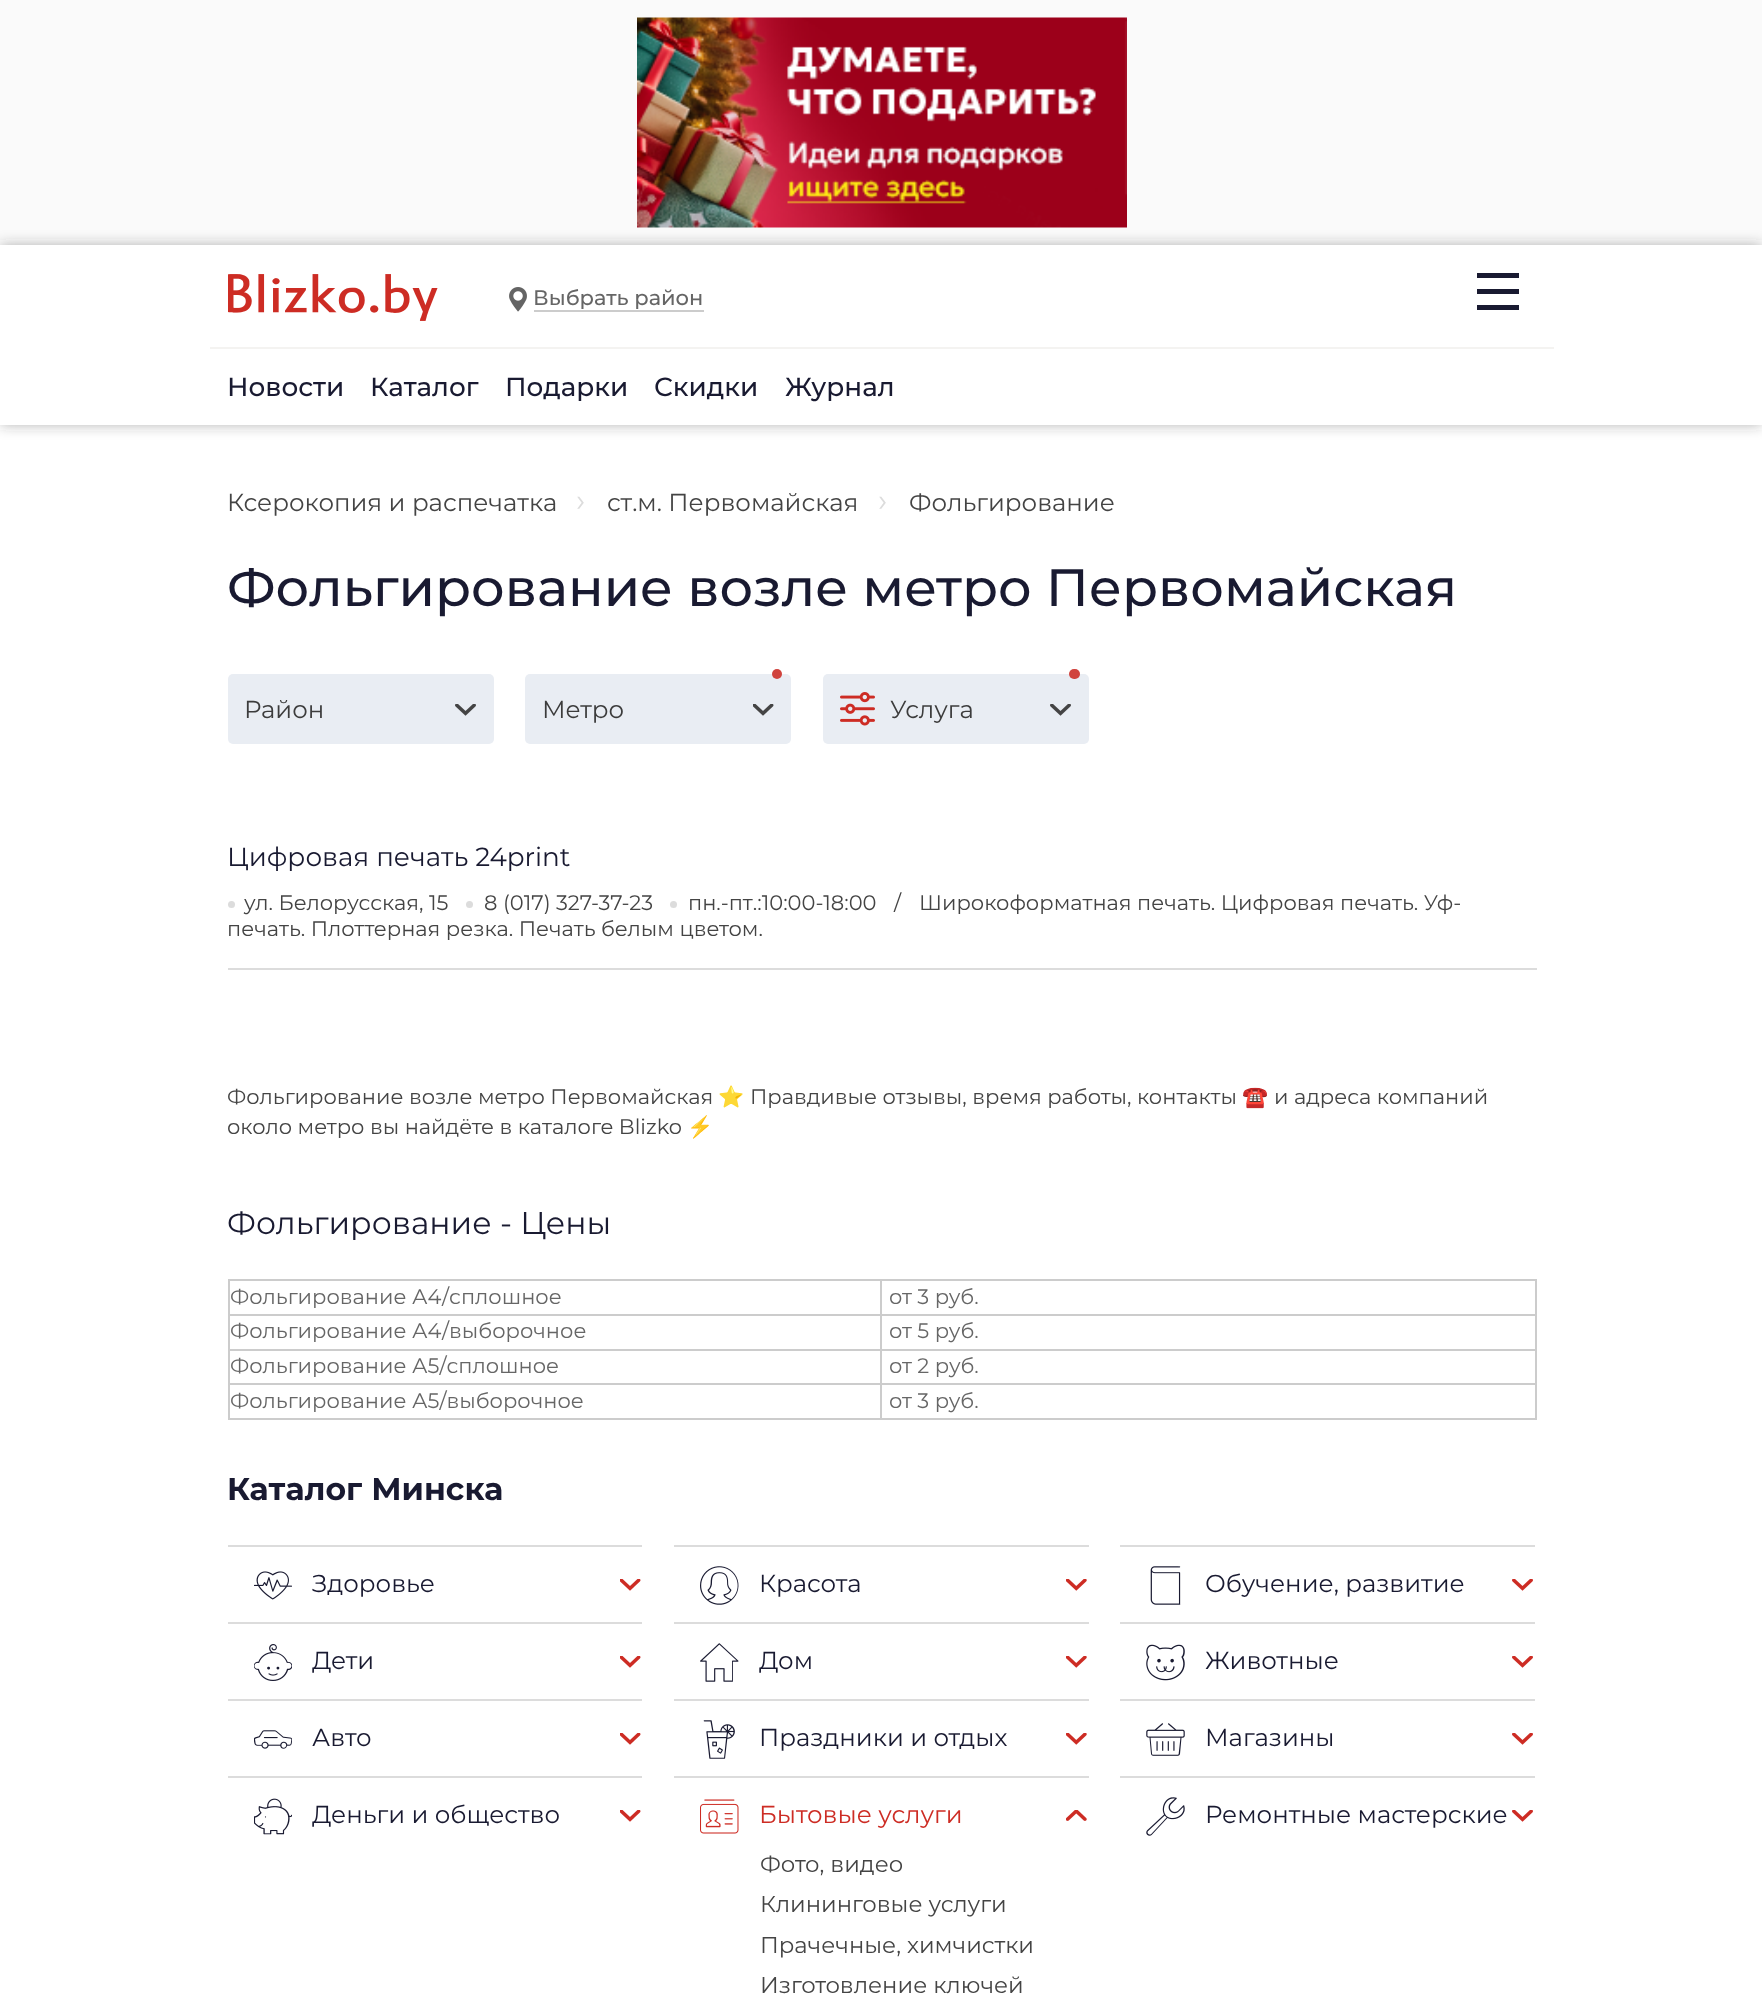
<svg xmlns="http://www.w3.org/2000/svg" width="1762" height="2007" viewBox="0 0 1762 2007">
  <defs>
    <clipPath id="clip1"><path d="M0 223H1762V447H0ZM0 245H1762V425H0Z" clip-rule="evenodd"/></clipPath>
    <filter id="blur1" x="-50%" y="-200%" width="200%" height="500%"><feGaussianBlur stdDeviation="7"/></filter>
  </defs>
  <rect width="100%" height="100%" fill="#ffffff"/>
  <rect x="0" y="0" width="1762" height="245" fill="#fafafa"/>
  <image x="637" y="17" width="490" height="211" href="img1.png"/>
  <g clip-path="url(#clip1)">
    <rect x="0" y="245" width="1762" height="180" fill="#333333" fill-opacity="0.35" filter="url(#blur1)"/>
  </g>
  <rect x="210" y="347" width="1344" height="2" fill="#f4f3f1"/>
  <image x="228" y="274" width="210" height="47" href="img2.png"/>
  <image x="509" y="287" width="18" height="25" href="img3.png"/>
  <text x="533" y="305" font-family="Montserrat" font-size="21" font-weight="500" fill="#666666">Выбрать район</text>
  <rect x="534" y="310" width="170" height="2" fill="#cccccc"/>
  <rect x="1477" y="289" width="42" height="5" fill="#191a31"/>
  <rect x="1477" y="273" width="42" height="5" fill="#191a31"/>
  <rect x="1477" y="305" width="42" height="5" fill="#191a31"/>
  <text x="227" y="396" font-family="Montserrat" font-size="26.25" font-weight="500" fill="#191a31">Новости</text>
  <text x="370" y="396" font-family="Montserrat" font-size="26.25" font-weight="500" fill="#191a31">Каталог</text>
  <text x="505" y="396" font-family="Montserrat" font-size="26.25" font-weight="500" fill="#191a31">Подарки</text>
  <text x="654" y="396" font-family="Montserrat" font-size="26.25" font-weight="500" fill="#191a31">Скидки</text>
  <text x="785" y="396" font-family="Montserrat" font-size="26.25" font-weight="500" fill="#191a31">Журнал</text>
  <text x="227" y="511" font-family="Montserrat" font-size="24.5" fill="#444444">Ксерокопия и распечатка</text>
  <text x="576" y="511" font-family="Montserrat" font-size="31.5" fill="#dcdcdc">›</text>
  <text x="607" y="511" font-family="Montserrat" font-size="24.5" fill="#444444">ст.м. Первомайская</text>
  <text x="878" y="511" font-family="Montserrat" font-size="31.5" fill="#dcdcdc">›</text>
  <text x="909" y="511" font-family="Montserrat" font-size="24.5" fill="#444444">Фольгирование</text>
  <text x="227" y="606" font-family="Montserrat" font-size="52.5" font-weight="500" fill="#191a31">Фольгирование возле метро Первомайская</text>
  <rect x="228" y="674" width="266" height="70" rx="5" fill="#e9edf3"/>
  <text x="244" y="718" font-family="Montserrat" font-size="24.5" fill="#3c3c3c">Район</text>
  <image x="455" y="704" width="21" height="12" href="img4.png"/>
  <rect x="525" y="674" width="266" height="70" rx="5" fill="#e9edf3"/>
  <circle cx="777" cy="674" r="5" fill="#d0433d"/>
  <text x="542" y="718" font-family="Montserrat" font-size="24.5" fill="#3c3c3c">Метро</text>
  <image x="753" y="704" width="21" height="12" href="img5.png"/>
  <rect x="823" y="674" width="266" height="70" rx="5" fill="#e9edf3"/>
  <rect x="1069" y="669" width="11" height="10" rx="5" fill="#d0433d"/>
  <image x="840" y="692" width="35" height="34" href="img6.png"/>
  <text x="890" y="718" font-family="Montserrat" font-size="24.5" fill="#3c3c3c">Услуга</text>
  <image x="1050" y="704" width="21" height="12" href="img4.png"/>
  <rect x="228" y="968" width="1309" height="2" fill="#dcdcdc"/>
  <text x="227" y="866" font-family="Montserrat" font-size="26.25" fill="#191a31">Цифровая печать 24print</text>
  <circle cx="231.5" cy="904.5" r="3.5" fill="#dcdcdc"/>
  <text x="244" y="910" font-family="Montserrat" font-size="21" fill="#444444">ул. Белорусская, 15</text>
  <circle cx="469.5" cy="904.5" r="3.5" fill="#dcdcdc"/>
  <text x="484" y="910" font-family="Montserrat" font-size="21" fill="#444444">8 (017) 327-37-23</text>
  <circle cx="673.5" cy="904.5" r="3.5" fill="#dcdcdc"/>
  <text x="688" y="910" font-family="Montserrat" font-size="21" fill="#444444">пн.-пт.:10:00-18:00</text>
  <text x="894" y="910" font-family="Montserrat" font-size="21" fill="#444444">/</text>
  <text x="919" y="910" font-family="Montserrat" font-size="21" fill="#444444">Широкоформатная печать. Цифровая печать. Уф-</text>
  <text x="227" y="936" font-family="Montserrat" font-size="21" fill="#444444">печать. Плоттерная резка. Печать белым цветом.</text>
  <text x="227" y="1104" font-family="Montserrat" font-size="21" fill="#444444">Фольгирование возле метро Первомайская</text>
  <text x="718" y="1104" font-family="Noto Color Emoji" font-size="21" fill="#444444">⭐️</text>
  <text x="750" y="1104" font-family="Montserrat" font-size="21" fill="#444444">Правдивые отзывы, время работы, контакты</text>
  <text x="1242" y="1104" font-family="Noto Color Emoji" font-size="21" fill="#444444">☎️</text>
  <text x="1274" y="1104" font-family="Montserrat" font-size="21" fill="#444444">и адреса компаний</text>
  <text x="227" y="1134" font-family="Montserrat" font-size="21" fill="#444444">около метро вы найдёте в каталоге Blizko</text>
  <text x="687" y="1134" font-family="Noto Color Emoji" font-size="21" fill="#444444">⚡️</text>
  <text x="227" y="1234" font-family="Montserrat" font-size="31.5" fill="#191a31">Фольгирование - Цены</text>
  <rect x="228" y="1279" width="1309" height="2" fill="#cccccc"/>
  <rect x="1535" y="1279" width="2" height="140" fill="#cccccc"/>
  <rect x="228" y="1418" width="1309" height="2" fill="#cccccc"/>
  <rect x="228" y="1279" width="2" height="140" fill="#cccccc"/>
  <text x="230" y="1304" font-family="Montserrat" font-size="21" fill="#666666">Фольгирование А4/сплошное</text>
  <rect x="880" y="1314" width="657" height="2" fill="#cccccc"/>
  <rect x="880" y="1349" width="657" height="2" fill="#cccccc"/>
  <rect x="880" y="1383" width="657" height="2" fill="#cccccc"/>
  <rect x="880" y="1383" width="2" height="36" fill="#cccccc"/>
  <rect x="228" y="1383" width="654" height="2" fill="#cccccc"/>
  <rect x="880" y="1349" width="2" height="35" fill="#cccccc"/>
  <rect x="228" y="1349" width="654" height="2" fill="#cccccc"/>
  <rect x="880" y="1314" width="2" height="37" fill="#cccccc"/>
  <rect x="228" y="1314" width="654" height="2" fill="#cccccc"/>
  <rect x="880" y="1279" width="2" height="37" fill="#cccccc"/>
  <text x="889" y="1304" font-family="Montserrat" font-size="21" fill="#666666">от 3 руб.</text>
  <text x="230" y="1338" font-family="Montserrat" font-size="21" fill="#666666">Фольгирование А4/выборочное</text>
  <text x="889" y="1338" font-family="Montserrat" font-size="21" fill="#666666">от 5 руб.</text>
  <text x="230" y="1373" font-family="Montserrat" font-size="21" fill="#666666">Фольгирование А5/сплошное</text>
  <text x="889" y="1373" font-family="Montserrat" font-size="21" fill="#666666">от 2 руб.</text>
  <text x="230" y="1408" font-family="Montserrat" font-size="21" fill="#666666">Фольгирование А5/выборочное</text>
  <text x="889" y="1408" font-family="Montserrat" font-size="21" fill="#666666">от 3 руб.</text>
  <text x="227" y="1500" font-family="Montserrat" font-size="31.5" font-weight="bold" fill="#191a31">Каталог Минска</text>
  <rect x="228" y="1545" width="414" height="2" fill="#dcdcdc"/>
  <image x="254" y="1571" width="38" height="29" href="img7.png"/>
  <text x="312" y="1592" font-family="Montserrat" font-size="24.5" fill="#191a31">Здоровье</text>
  <image x="620" y="1579" width="21" height="12" href="img8.png"/>
  <rect x="674" y="1545" width="415" height="2" fill="#dcdcdc"/>
  <image x="700" y="1566" width="39" height="39" href="img9.png"/>
  <text x="759" y="1592" font-family="Montserrat" font-size="24.5" fill="#191a31">Красота</text>
  <image x="1066" y="1579" width="21" height="12" href="img10.png"/>
  <rect x="1120" y="1545" width="415" height="2" fill="#dcdcdc"/>
  <image x="1150" y="1566" width="31" height="39" href="img11.png"/>
  <text x="1205" y="1592" font-family="Montserrat" font-size="24.5" fill="#191a31">Обучение, развитие</text>
  <image x="1512" y="1579" width="21" height="12" href="img12.png"/>
  <rect x="228" y="1622" width="414" height="2" fill="#dcdcdc"/>
  <image x="254" y="1644" width="38" height="37" href="img13.png"/>
  <text x="312" y="1669" font-family="Montserrat" font-size="24.5" fill="#191a31">Дети</text>
  <image x="620" y="1656" width="21" height="12" href="img8.png"/>
  <rect x="674" y="1622" width="415" height="2" fill="#dcdcdc"/>
  <image x="700" y="1643" width="39" height="39" href="img14.png"/>
  <text x="759" y="1669" font-family="Montserrat" font-size="24.5" fill="#191a31">Дом</text>
  <image x="1066" y="1656" width="21" height="12" href="img10.png"/>
  <rect x="1120" y="1622" width="415" height="2" fill="#dcdcdc"/>
  <image x="1146" y="1644" width="39" height="37" href="img15.png"/>
  <text x="1205" y="1669" font-family="Montserrat" font-size="24.5" fill="#191a31">Животные</text>
  <image x="1512" y="1656" width="21" height="12" href="img12.png"/>
  <rect x="228" y="1699" width="414" height="2" fill="#dcdcdc"/>
  <image x="254" y="1730" width="38" height="19" href="img16.png"/>
  <text x="312" y="1746" font-family="Montserrat" font-size="24.5" fill="#191a31">Авто</text>
  <image x="620" y="1733" width="21" height="12" href="img8.png"/>
  <rect x="674" y="1699" width="415" height="2" fill="#dcdcdc"/>
  <image x="703" y="1720" width="32" height="39" href="img17.png"/>
  <text x="759" y="1746" font-family="Montserrat" font-size="24.5" fill="#191a31">Праздники и отдых</text>
  <image x="1066" y="1733" width="21" height="12" href="img10.png"/>
  <rect x="1120" y="1699" width="415" height="2" fill="#dcdcdc"/>
  <image x="1146" y="1723" width="39" height="33" href="img18.png"/>
  <text x="1205" y="1746" font-family="Montserrat" font-size="24.5" fill="#191a31">Магазины</text>
  <image x="1512" y="1733" width="21" height="12" href="img12.png"/>
  <rect x="228" y="1776" width="414" height="2" fill="#dcdcdc"/>
  <image x="254" y="1798" width="38" height="37" href="img19.png"/>
  <text x="312" y="1823" font-family="Montserrat" font-size="24.5" fill="#191a31">Деньги и общество</text>
  <image x="620" y="1810" width="21" height="12" href="img8.png"/>
  <rect x="674" y="1776" width="415" height="2" fill="#dcdcdc"/>
  <image x="700" y="1799" width="39" height="35" href="img20.png"/>
  <text x="759" y="1823" font-family="Montserrat" font-size="24.5" fill="#cd2c24">Бытовые услуги</text>
  <image x="1066" y="1810" width="21" height="11" href="img21.png"/>
  <text x="760" y="1872" font-family="Montserrat" font-size="22.75" fill="#444444">Фото, видео</text>
  <text x="760" y="1912" font-family="Montserrat" font-size="22.75" fill="#444444">Клининговые услуги</text>
  <text x="760" y="1953" font-family="Montserrat" font-size="22.75" fill="#444444">Прачечные, химчистки</text>
  <text x="760" y="1993" font-family="Montserrat" font-size="22.75" fill="#444444">Изготовление ключей</text>
  <rect x="1120" y="1776" width="415" height="2" fill="#dcdcdc"/>
  <image x="1146" y="1797" width="39" height="39" href="img22.png"/>
  <text x="1205" y="1823" font-family="Montserrat" font-size="24.5" fill="#191a31">Ремонтные мастерские</text>
  <image x="1512" y="1810" width="21" height="12" href="img12.png"/>
</svg>
